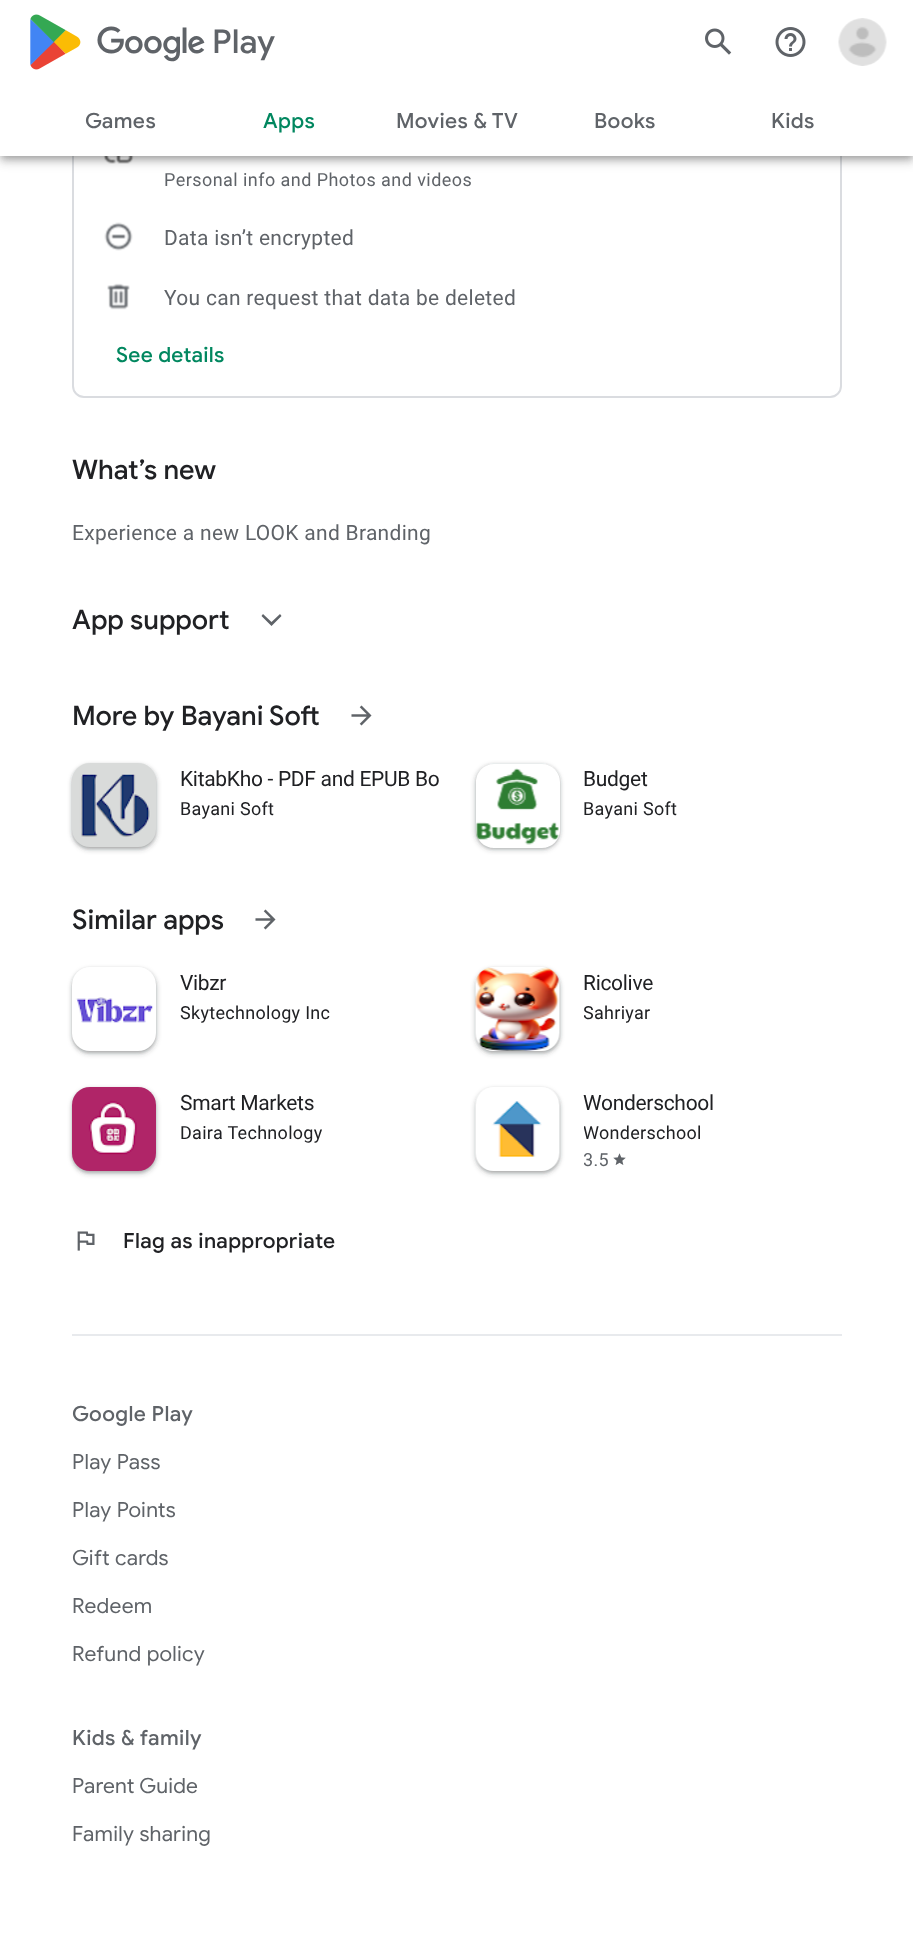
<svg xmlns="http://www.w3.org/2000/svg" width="913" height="1940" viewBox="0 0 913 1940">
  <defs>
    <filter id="blur1" x="-50%" y="-200%" width="200%" height="500%"><feGaussianBlur stdDeviation="3"/></filter>
    <filter id="blur2" x="-50%" y="-200%" width="200%" height="500%"><feGaussianBlur stdDeviation="7.5"/></filter>
    <filter id="blur3" x="-50%" y="-200%" width="200%" height="500%"><feGaussianBlur stdDeviation="4"/></filter>
    <filter id="blur4" x="-50%" y="-200%" width="200%" height="500%"><feGaussianBlur stdDeviation="2"/></filter>
    <filter id="blur5" x="-50%" y="-200%" width="200%" height="500%"><feGaussianBlur stdDeviation="1.5"/></filter>
    <clipPath id="clip1"><path d="M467 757H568V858H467ZM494 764H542C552 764 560 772 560 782V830C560 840 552 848 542 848H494C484 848 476 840 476 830V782C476 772 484 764 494 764Z" clip-rule="evenodd"/></clipPath>
    <clipPath id="clip2"><path d="M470 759H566V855H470ZM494 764H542C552 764 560 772 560 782V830C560 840 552 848 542 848H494C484 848 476 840 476 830V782C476 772 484 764 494 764Z" clip-rule="evenodd"/></clipPath>
    <clipPath id="clip3"><rect x="584" y="1001" width="69" height="24"/></clipPath>
    <clipPath id="clip4"><rect x="584" y="1121" width="130" height="24"/></clipPath>
    <clipPath id="clip5"><rect x="584" y="1148" width="130" height="24"/></clipPath>
  </defs>
  <rect width="100%" height="100%" fill="#ffffff"/>
  <rect x="73" y="24" width="768" height="373" rx="11" fill="none" stroke="#dadce0" stroke-width="2"/>
  <image x="103" y="156" width="31" height="8" href="img5.png"/>
  <rect x="2" y="5" width="910" height="153" fill="#000000" fill-opacity="0.2" filter="url(#blur1)"/>
  <rect x="0" y="2" width="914" height="156" fill="#000000" fill-opacity="0.12" filter="url(#blur2)"/>
  <rect x="0" y="6" width="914" height="156" fill="#000000" fill-opacity="0.14" filter="url(#blur3)"/>
  <rect x="0" y="0" width="913" height="156" fill="#ffffff"/>
  <image x="30" y="14" width="51" height="56" href="img1.png"/>
  <text x="96" y="53" font-family="Google Sans" font-size="33" font-weight="500" fill="#5f6368">google_logo Play</text>
  <image x="705" y="28" width="27" height="27" href="img2.png"/>
  <image x="775" y="27" width="31" height="30" href="img3.png"/>
  <image x="838" y="18" width="49" height="48" href="img4.png"/>
  <text x="85" y="128" font-family="Google Sans" font-size="21" font-weight="500" letter-spacing="0.4" fill="#5f6368">Games</text>
  <text x="263" y="128" font-family="Google Sans" font-size="21" font-weight="500" letter-spacing="0.4" fill="#01875f">Apps</text>
  <text x="396" y="128" font-family="Google Sans" font-size="21" font-weight="500" letter-spacing="0.4" fill="#5f6368">Movies &amp; TV</text>
  <text x="594" y="128" font-family="Google Sans" font-size="21" font-weight="500" letter-spacing="0.4" fill="#5f6368">Books</text>
  <text x="771" y="128" font-family="Google Sans" font-size="21" font-weight="500" letter-spacing="0.4" fill="#5f6368">Kids</text>
  <text x="164" y="186" font-family="Roboto" font-size="18" letter-spacing="0.45" fill="#5f6368">Personal info and Photos and videos</text>
  <image x="104" y="222" width="29" height="29" href="img6.png"/>
  <text x="164" y="245" font-family="Roboto" font-size="21" letter-spacing="0.3" fill="#5f6368">Data isn’t encrypted</text>
  <image x="107" y="283" width="23" height="27" href="img7.png"/>
  <text x="164" y="305" font-family="Roboto" font-size="21" letter-spacing="0.3" fill="#5f6368">You can request that data be deleted</text>
  <text x="116" y="362" font-family="Google Sans" font-size="21" font-weight="500" letter-spacing="0.25" fill="#01875f">See details</text>
  <text x="72" y="479" font-family="Google Sans" font-size="27" font-weight="500" fill="#202124">What’s new</text>
  <text x="72" y="540" font-family="Roboto" font-size="21" letter-spacing="0.3" fill="#5f6368">Experience a new LOOK and Branding</text>
  <text x="72" y="629" font-family="Google Sans" font-size="27" font-weight="500" fill="#202124">App support</text>
  <path d="M263 614L261.5 616L271.5 626L281.5 616L280 614L271.5 622Z" fill="#5f6368"/>
  <text x="72" y="725" font-family="Google Sans" font-size="27" font-weight="500" fill="#202124">More by Bayani Soft</text>
  <image x="351" y="705" width="21" height="21" href="img8.png"/>
  <rect x="71" y="764" width="87" height="87" rx="20" fill="#3c4043" fill-opacity="0.15" filter="url(#blur4)"/>
  <rect x="72" y="765" width="84" height="84" rx="18" fill="#3c4043" fill-opacity="0.3" filter="url(#blur5)"/>
  <image x="72" y="763" width="84" height="84" href="img9.png"/>
  <text x="180" y="786" font-family="Roboto" font-size="21" letter-spacing="-0.3" fill="#202124">KitabKho - PDF and EPUB Bo</text>
  <text x="180" y="815" font-family="Roboto" font-size="18" letter-spacing="0.3" fill="#202124">Bayani Soft</text>
  <g clip-path="url(#clip1)">
    <rect x="474" y="764" width="87" height="87" rx="20" fill="#3c4043" fill-opacity="0.15" filter="url(#blur4)"/>
  </g>
  <g clip-path="url(#clip2)">
    <rect x="476" y="765" width="84" height="84" rx="18" fill="#3c4043" fill-opacity="0.3" filter="url(#blur5)"/>
  </g>
  <image x="476" y="768" width="83" height="77" href="img10.png"/>
  <text x="583" y="786" font-family="Roboto" font-size="21" letter-spacing="-0.3" fill="#202124">Budget</text>
  <text x="583" y="815" font-family="Roboto" font-size="18" letter-spacing="0.3" fill="#202124">Bayani Soft</text>
  <text x="72" y="929" font-family="Google Sans" font-size="27" font-weight="500" fill="#202124">Similar apps</text>
  <image x="255" y="909" width="21" height="21" href="img8.png"/>
  <rect x="71" y="968" width="87" height="87" rx="20" fill="#3c4043" fill-opacity="0.15" filter="url(#blur4)"/>
  <rect x="72" y="969" width="84" height="84" rx="18" fill="#3c4043" fill-opacity="0.3" filter="url(#blur5)"/>
  <image x="72" y="967" width="84" height="84" href="img11.png"/>
  <text x="180" y="990" font-family="Roboto" font-size="21" letter-spacing="-0.3" fill="#202124">Vibzr</text>
  <text x="180" y="1019" font-family="Roboto" font-size="18" letter-spacing="0.3" fill="#202124">Skytechnology Inc</text>
  <rect x="474" y="968" width="87" height="87" rx="20" fill="#3c4043" fill-opacity="0.15" filter="url(#blur4)"/>
  <rect x="476" y="969" width="84" height="84" rx="18" fill="#3c4043" fill-opacity="0.3" filter="url(#blur5)"/>
  <image x="475" y="967" width="85" height="84" href="img12.png"/>
  <text x="583" y="990" font-family="Roboto" font-size="21" letter-spacing="-0.3" fill="#202124">Ricolive</text>
  <g clip-path="url(#clip3)">
    <text x="583" y="1019" font-family="Roboto" font-size="18" letter-spacing="0.3" fill="#202124">Sahriyar</text>
  </g>
  <rect x="71" y="1088" width="87" height="87" rx="20" fill="#3c4043" fill-opacity="0.15" filter="url(#blur4)"/>
  <rect x="72" y="1089" width="84" height="84" rx="18" fill="#3c4043" fill-opacity="0.3" filter="url(#blur5)"/>
  <image x="72" y="1087" width="84" height="84" href="img13.png"/>
  <text x="180" y="1110" font-family="Roboto" font-size="21" letter-spacing="-0.3" fill="#202124">Smart Markets</text>
  <text x="180" y="1139" font-family="Roboto" font-size="18" letter-spacing="0.3" fill="#202124">Daira Technology</text>
  <rect x="474" y="1088" width="87" height="87" rx="20" fill="#3c4043" fill-opacity="0.15" filter="url(#blur4)"/>
  <rect x="476" y="1089" width="84" height="84" rx="18" fill="#3c4043" fill-opacity="0.3" filter="url(#blur5)"/>
  <image x="475" y="1087" width="85" height="84" href="img14.png"/>
  <text x="583" y="1110" font-family="Roboto" font-size="21" letter-spacing="-0.3" fill="#202124">Wonderschool</text>
  <g clip-path="url(#clip4)">
    <text x="583" y="1139" font-family="Roboto" font-size="18" letter-spacing="0.3" fill="#202124">Wonderschool</text>
  </g>
  <g clip-path="url(#clip5)">
    <text x="583" y="1166" font-family="Roboto" font-size="18" letter-spacing="0.3" fill="#5f6368">3.5</text>
  </g>
  <image x="613" y="1153" width="13" height="12" href="img15.png"/>
  <image x="77" y="1231" width="18" height="20" href="img16.png"/>
  <text x="123" y="1248" font-family="Google Sans" font-size="21" font-weight="500" letter-spacing="0.4" fill="#202124">Flag as inappropriate</text>
  <rect x="72" y="1334" width="770" height="2" fill="#e8eaed"/>
  <text x="72" y="1421" font-family="Google Sans" font-size="21" font-weight="500" letter-spacing="0.4" fill="#5f6368">Google Play</text>
  <text x="72" y="1469" font-family="Google Sans" font-size="21" letter-spacing="0.3" fill="#5f6368">Play Pass</text>
  <text x="72" y="1517" font-family="Google Sans" font-size="21" letter-spacing="0.3" fill="#5f6368">Play Points</text>
  <text x="72" y="1565" font-family="Google Sans" font-size="21" letter-spacing="0.3" fill="#5f6368">Gift cards</text>
  <text x="72" y="1613" font-family="Google Sans" font-size="21" letter-spacing="0.3" fill="#5f6368">Redeem</text>
  <text x="72" y="1661" font-family="Google Sans" font-size="21" letter-spacing="0.3" fill="#5f6368">Refund policy</text>
  <text x="72" y="1745" font-family="Google Sans" font-size="21" font-weight="500" letter-spacing="0.4" fill="#5f6368">Kids &amp; family</text>
  <text x="72" y="1793" font-family="Google Sans" font-size="21" letter-spacing="0.3" fill="#5f6368">Parent Guide</text>
  <text x="72" y="1841" font-family="Google Sans" font-size="21" letter-spacing="0.3" fill="#5f6368">Family sharing</text>
</svg>
